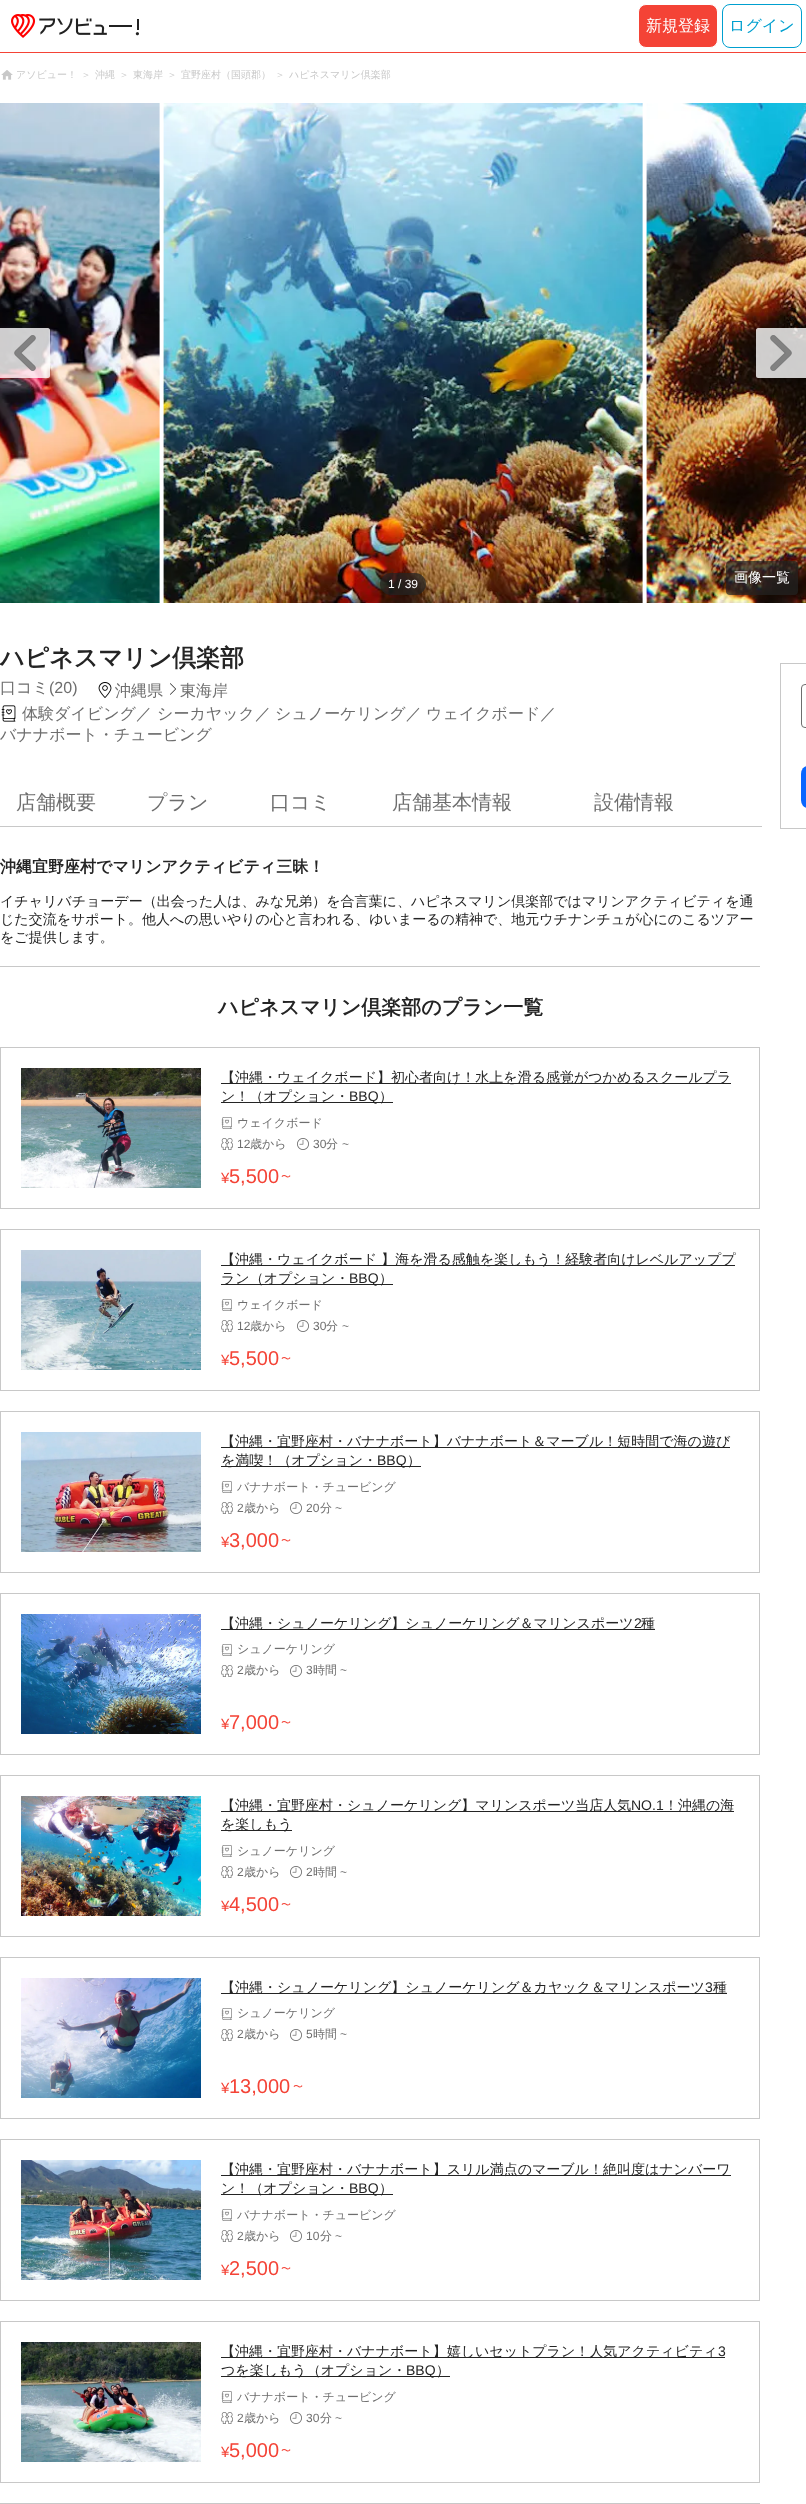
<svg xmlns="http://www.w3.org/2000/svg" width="806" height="2504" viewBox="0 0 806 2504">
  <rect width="100%" height="100%" fill="#ffffff"/>
  <rect x="0" y="52" width="806" height="1" fill="#f44336"/>
  <image x="11" y="14" width="128" height="24" href="img1.png"/>
  <rect x="638.5" y="4.5" width="79" height="43" rx="7.5" fill="#f44336" stroke="#ffffff"/>
  <text x="646" y="31" font-family="WenQuanYi Zen Hei" font-size="16" font-weight="500" fill="#ffffff">新規登録</text>
  <rect x="722.5" y="4.5" width="79" height="43" rx="7.5" fill="none" stroke="#00a0d0"/>
  <text x="729" y="31" font-family="WenQuanYi Zen Hei" font-size="16" font-weight="500" fill="#00a0d0">ログイン</text>
  <image x="1" y="70" width="12" height="10" href="img2.png"/>
  <text x="16" y="78" font-family="WenQuanYi Zen Hei" font-size="10" font-weight="500" fill="#c8c8c8">アソビュー！</text>
  <text x="81" y="78" font-family="WenQuanYi Zen Hei" font-size="10" font-weight="500" fill="#c8c8c8">＞</text>
  <text x="95" y="78" font-family="WenQuanYi Zen Hei" font-size="10" font-weight="500" fill="#c8c8c8">沖縄</text>
  <text x="119" y="78" font-family="WenQuanYi Zen Hei" font-size="10" font-weight="500" fill="#c8c8c8">＞</text>
  <text x="133" y="78" font-family="WenQuanYi Zen Hei" font-size="10" font-weight="500" fill="#c8c8c8">東海岸</text>
  <text x="167" y="78" font-family="WenQuanYi Zen Hei" font-size="10" font-weight="500" fill="#c8c8c8">＞</text>
  <text x="181" y="78" font-family="WenQuanYi Zen Hei" font-size="10" font-weight="500" fill="#c8c8c8">宜野座村（国頭郡）</text>
  <text x="275" y="78" font-family="WenQuanYi Zen Hei" font-size="10" font-weight="500" fill="#c8c8c8">＞</text>
  <text x="289" y="78" font-family="WenQuanYi Zen Hei" font-size="10" font-weight="500" fill="#c8c8c8">ハピネスマリン倶楽部</text>
  <image x="0" y="103" width="160" height="500" href="img3.png"/>
  <image x="163" y="103" width="480" height="500" href="img4.png"/>
  <image x="646" y="103" width="160" height="500" href="img5.png"/>
  <path d="M0 328H48C49 328 50 329 50 330V376C50 377 49 378 48 378H0Z" fill="#ffffff" fill-opacity="0.8"/>
  <image x="14" y="335" width="22" height="36" href="img6.png"/>
  <path d="M758 328H806V378H758C757 378 756 377 756 376V330C756 329 757 328 758 328Z" fill="#ffffff" fill-opacity="0.8"/>
  <image x="770" y="335" width="22" height="36" href="img7.png"/>
  <rect x="380" y="573" width="46" height="22" rx="11" fill="#242424" fill-opacity="0.7"/>
  <text x="388" y="588" font-family="Liberation Sans" font-size="12" fill="#ffffff">1 / 39</text>
  <rect x="726" y="561" width="72" height="34" rx="4" fill="#242424" fill-opacity="0.7"/>
  <text x="734" y="582" font-family="WenQuanYi Zen Hei" font-size="14" font-weight="500" fill="#ffffff">画像一覧</text>
  <text x="0" y="666" font-family="WenQuanYi Zen Hei" font-size="24" font-weight="bold" fill="#242424">ハピネスマリン倶楽部</text>
  <text x="0" y="693" font-family="WenQuanYi Zen Hei" font-size="16" font-weight="500" fill="#6e6e6e">口コミ</text>
  <text x="49" y="693" font-family="Liberation Sans" font-size="16" fill="#6e6e6e">(20)</text>
  <image x="98" y="682" width="14" height="16" href="img8.png"/>
  <text x="115" y="696" font-family="WenQuanYi Zen Hei" font-size="16" font-weight="500" fill="#6e6e6e">沖縄県</text>
  <image x="170" y="683" width="6" height="12" href="img9.png"/>
  <text x="180" y="696" font-family="WenQuanYi Zen Hei" font-size="16" font-weight="500" fill="#6e6e6e">東海岸</text>
  <image x="1" y="705" width="15" height="17" href="img10.png"/>
  <text x="22" y="719" font-family="WenQuanYi Zen Hei" font-size="16" font-weight="500" fill="#6e6e6e">体験ダイビング／</text>
  <text x="157" y="719" font-family="WenQuanYi Zen Hei" font-size="16" font-weight="500" fill="#6e6e6e">シーカヤック／</text>
  <text x="275" y="719" font-family="WenQuanYi Zen Hei" font-size="16" font-weight="500" fill="#6e6e6e">シュノーケリング／</text>
  <text x="426" y="719" font-family="WenQuanYi Zen Hei" font-size="16" font-weight="500" fill="#6e6e6e">ウェイクボード／</text>
  <text x="0" y="740" font-family="WenQuanYi Zen Hei" font-size="16" font-weight="500" fill="#6e6e6e">バナナボート・チュービング</text>
  <rect x="0" y="826" width="762" height="1" fill="#c8c8c8"/>
  <text x="16" y="809" font-family="WenQuanYi Zen Hei" font-size="20" font-weight="500" fill="#6e6e6e">店舗概要</text>
  <text x="147" y="809" font-family="WenQuanYi Zen Hei" font-size="20" font-weight="500" fill="#6e6e6e">プラン</text>
  <text x="270" y="809" font-family="WenQuanYi Zen Hei" font-size="20" font-weight="500" fill="#6e6e6e">口コミ</text>
  <text x="392" y="809" font-family="WenQuanYi Zen Hei" font-size="20" font-weight="500" fill="#6e6e6e">店舗基本情報</text>
  <text x="594" y="809" font-family="WenQuanYi Zen Hei" font-size="20" font-weight="500" fill="#6e6e6e">設備情報</text>
  <rect x="0" y="966" width="760" height="1" fill="#c8c8c8"/>
  <text x="0" y="872" font-family="WenQuanYi Zen Hei" font-size="16" font-weight="bold" fill="#242424">沖縄宜野座村でマリンアクティビティ三昧！</text>
  <text x="0" y="906" font-family="WenQuanYi Zen Hei" font-size="14" font-weight="500" fill="#242424">イチャリバチョーデー（出会った人は、みな兄弟）を合言葉に、ハピネスマリン倶楽部ではマリンアクティビティを通</text>
  <text x="0" y="924" font-family="WenQuanYi Zen Hei" font-size="14" font-weight="500" fill="#242424">じた交流をサポート。他人への思いやりの心と言われる、ゆいまーるの精神で、地元ウチナンチュが心にのこるツアー</text>
  <text x="0" y="942" font-family="WenQuanYi Zen Hei" font-size="14" font-weight="500" fill="#242424">をご提供します。</text>
  <text x="218" y="1014" font-family="WenQuanYi Zen Hei" font-size="20" font-weight="bold" fill="#242424">ハピネスマリン倶楽部のプラン一覧</text>
  <rect x="0.5" y="1047.5" width="759" height="161" fill="none" stroke="#c8c8c8"/>
  <image x="21" y="1068" width="180" height="120" href="img11.png"/>
  <rect x="221" y="1083" width="510" height="1" fill="#242424"/>
  <text x="221" y="1082" font-family="WenQuanYi Zen Hei" font-size="14" font-weight="500" fill="#242424">【沖縄・ウェイクボード】初心者向け！水上を滑る感覚がつかめるスクールプラ</text>
  <rect x="221" y="1102" width="172" height="1" fill="#242424"/>
  <text x="221" y="1101" font-family="WenQuanYi Zen Hei" font-size="14" font-weight="500" fill="#242424">ン！（オプション・</text>
  <text x="349" y="1101" font-family="Liberation Sans" font-size="14" fill="#242424">BBQ</text>
  <text x="379" y="1101" font-family="WenQuanYi Zen Hei" font-size="14" font-weight="500" fill="#242424">）</text>
  <image x="221" y="1117" width="11" height="12" href="img12.png"/>
  <text x="237" y="1127" font-family="WenQuanYi Zen Hei" font-size="12" font-weight="500" fill="#6e6e6e">ウェイクボード</text>
  <image x="221" y="1138" width="12" height="12" href="img13.png"/>
  <text x="237" y="1148" font-family="Liberation Sans" font-size="12" fill="#6e6e6e">12</text>
  <text x="250" y="1148" font-family="WenQuanYi Zen Hei" font-size="12" font-weight="500" fill="#6e6e6e">歳から</text>
  <image x="297" y="1138" width="12" height="12" href="img14.png"/>
  <text x="313" y="1148" font-family="Liberation Sans" font-size="12" fill="#6e6e6e">30</text>
  <text x="326" y="1148" font-family="WenQuanYi Zen Hei" font-size="12" font-weight="500" fill="#6e6e6e">分</text>
  <text x="342" y="1148" font-family="Liberation Sans" font-size="12" fill="#6e6e6e">~</text>
  <text x="221" y="1183" font-family="Liberation Sans" font-size="15" fill="#f44336">¥</text>
  <text x="229" y="1183" font-family="Liberation Sans" font-size="20" fill="#f44336">5,500</text>
  <text x="281" y="1180" font-family="WenQuanYi Zen Hei" font-size="10" font-weight="500" fill="#f44336">〜</text>
  <rect x="0.5" y="1229.5" width="759" height="161" fill="none" stroke="#c8c8c8"/>
  <image x="21" y="1250" width="180" height="120" href="img15.png"/>
  <rect x="221" y="1265" width="514" height="1" fill="#242424"/>
  <text x="221" y="1264" font-family="WenQuanYi Zen Hei" font-size="14" font-weight="500" fill="#242424">【沖縄・ウェイクボード 】海を滑る感触を楽しもう！経験者向けレベルアッププ</text>
  <rect x="221" y="1284" width="172" height="1" fill="#242424"/>
  <text x="221" y="1283" font-family="WenQuanYi Zen Hei" font-size="14" font-weight="500" fill="#242424">ラン（オプション・</text>
  <text x="349" y="1283" font-family="Liberation Sans" font-size="14" fill="#242424">BBQ</text>
  <text x="379" y="1283" font-family="WenQuanYi Zen Hei" font-size="14" font-weight="500" fill="#242424">）</text>
  <image x="221" y="1299" width="11" height="12" href="img12.png"/>
  <text x="237" y="1309" font-family="WenQuanYi Zen Hei" font-size="12" font-weight="500" fill="#6e6e6e">ウェイクボード</text>
  <image x="221" y="1320" width="12" height="12" href="img13.png"/>
  <text x="237" y="1330" font-family="Liberation Sans" font-size="12" fill="#6e6e6e">12</text>
  <text x="250" y="1330" font-family="WenQuanYi Zen Hei" font-size="12" font-weight="500" fill="#6e6e6e">歳から</text>
  <image x="297" y="1320" width="12" height="12" href="img14.png"/>
  <text x="313" y="1330" font-family="Liberation Sans" font-size="12" fill="#6e6e6e">30</text>
  <text x="326" y="1330" font-family="WenQuanYi Zen Hei" font-size="12" font-weight="500" fill="#6e6e6e">分</text>
  <text x="342" y="1330" font-family="Liberation Sans" font-size="12" fill="#6e6e6e">~</text>
  <text x="221" y="1365" font-family="Liberation Sans" font-size="15" fill="#f44336">¥</text>
  <text x="229" y="1365" font-family="Liberation Sans" font-size="20" fill="#f44336">5,500</text>
  <text x="281" y="1362" font-family="WenQuanYi Zen Hei" font-size="10" font-weight="500" fill="#f44336">〜</text>
  <rect x="0.5" y="1411.5" width="759" height="161" fill="none" stroke="#c8c8c8"/>
  <image x="21" y="1432" width="180" height="120" href="img16.png"/>
  <rect x="221" y="1447" width="509" height="1" fill="#242424"/>
  <text x="221" y="1446" font-family="WenQuanYi Zen Hei" font-size="14" font-weight="500" fill="#242424">【沖縄・宜野座村・バナナボート】バナナボート＆マーブル！短時間で海の遊び</text>
  <rect x="221" y="1466" width="200" height="1" fill="#242424"/>
  <text x="221" y="1465" font-family="WenQuanYi Zen Hei" font-size="14" font-weight="500" fill="#242424">を満喫！（オプション・</text>
  <text x="377" y="1465" font-family="Liberation Sans" font-size="14" fill="#242424">BBQ</text>
  <text x="407" y="1465" font-family="WenQuanYi Zen Hei" font-size="14" font-weight="500" fill="#242424">）</text>
  <image x="221" y="1481" width="11" height="12" href="img12.png"/>
  <text x="237" y="1491" font-family="WenQuanYi Zen Hei" font-size="12" font-weight="500" fill="#6e6e6e">バナナボート・チュービング</text>
  <image x="221" y="1502" width="12" height="12" href="img13.png"/>
  <text x="237" y="1512" font-family="Liberation Sans" font-size="12" fill="#6e6e6e">2</text>
  <text x="244" y="1512" font-family="WenQuanYi Zen Hei" font-size="12" font-weight="500" fill="#6e6e6e">歳から</text>
  <image x="290" y="1502" width="12" height="12" href="img14.png"/>
  <text x="306" y="1512" font-family="Liberation Sans" font-size="12" fill="#6e6e6e">20</text>
  <text x="320" y="1512" font-family="WenQuanYi Zen Hei" font-size="12" font-weight="500" fill="#6e6e6e">分</text>
  <text x="335" y="1512" font-family="Liberation Sans" font-size="12" fill="#6e6e6e">~</text>
  <text x="221" y="1547" font-family="Liberation Sans" font-size="15" fill="#f44336">¥</text>
  <text x="229" y="1547" font-family="Liberation Sans" font-size="20" fill="#f44336">3,000</text>
  <text x="281" y="1544" font-family="WenQuanYi Zen Hei" font-size="10" font-weight="500" fill="#f44336">〜</text>
  <rect x="0.5" y="1593.5" width="759" height="161" fill="none" stroke="#c8c8c8"/>
  <image x="21" y="1614" width="180" height="120" href="img17.png"/>
  <rect x="221" y="1629" width="434" height="1" fill="#242424"/>
  <text x="221" y="1628" font-family="WenQuanYi Zen Hei" font-size="14" font-weight="500" fill="#242424">【沖縄・シュノーケリング】シュノーケリング＆マリンスポーツ</text>
  <text x="634" y="1628" font-family="Liberation Sans" font-size="14" fill="#242424">2</text>
  <text x="641" y="1628" font-family="WenQuanYi Zen Hei" font-size="14" font-weight="500" fill="#242424">種</text>
  <image x="221" y="1644" width="11" height="12" href="img12.png"/>
  <text x="237" y="1653" font-family="WenQuanYi Zen Hei" font-size="12" font-weight="500" fill="#6e6e6e">シュノーケリング</text>
  <image x="221" y="1665" width="12" height="12" href="img13.png"/>
  <text x="237" y="1674" font-family="Liberation Sans" font-size="12" fill="#6e6e6e">2</text>
  <text x="244" y="1674" font-family="WenQuanYi Zen Hei" font-size="12" font-weight="500" fill="#6e6e6e">歳から</text>
  <image x="290" y="1665" width="12" height="12" href="img14.png"/>
  <text x="306" y="1674" font-family="Liberation Sans" font-size="12" fill="#6e6e6e">3</text>
  <text x="313" y="1674" font-family="WenQuanYi Zen Hei" font-size="12" font-weight="500" fill="#6e6e6e">時間</text>
  <text x="340" y="1674" font-family="Liberation Sans" font-size="12" fill="#6e6e6e">~</text>
  <text x="221" y="1729" font-family="Liberation Sans" font-size="15" fill="#f44336">¥</text>
  <text x="229" y="1729" font-family="Liberation Sans" font-size="20" fill="#f44336">7,000</text>
  <text x="281" y="1726" font-family="WenQuanYi Zen Hei" font-size="10" font-weight="500" fill="#f44336">〜</text>
  <rect x="0.5" y="1775.5" width="759" height="161" fill="none" stroke="#c8c8c8"/>
  <image x="21" y="1796" width="180" height="120" href="img18.png"/>
  <rect x="221" y="1811" width="513" height="1" fill="#242424"/>
  <text x="221" y="1810" font-family="WenQuanYi Zen Hei" font-size="14" font-weight="500" fill="#242424">【沖縄・宜野座村・シュノーケリング】マリンスポーツ当店人気</text>
  <text x="631" y="1810" font-family="Liberation Sans" font-size="14" fill="#242424">NO.1</text>
  <text x="664" y="1810" font-family="WenQuanYi Zen Hei" font-size="14" font-weight="500" fill="#242424">！沖縄の海</text>
  <rect x="221" y="1830" width="71" height="1" fill="#242424"/>
  <text x="221" y="1829" font-family="WenQuanYi Zen Hei" font-size="14" font-weight="500" fill="#242424">を楽しもう</text>
  <image x="221" y="1845" width="11" height="12" href="img12.png"/>
  <text x="237" y="1855" font-family="WenQuanYi Zen Hei" font-size="12" font-weight="500" fill="#6e6e6e">シュノーケリング</text>
  <image x="221" y="1866" width="12" height="12" href="img13.png"/>
  <text x="237" y="1876" font-family="Liberation Sans" font-size="12" fill="#6e6e6e">2</text>
  <text x="244" y="1876" font-family="WenQuanYi Zen Hei" font-size="12" font-weight="500" fill="#6e6e6e">歳から</text>
  <image x="290" y="1866" width="12" height="12" href="img14.png"/>
  <text x="306" y="1876" font-family="Liberation Sans" font-size="12" fill="#6e6e6e">2</text>
  <text x="313" y="1876" font-family="WenQuanYi Zen Hei" font-size="12" font-weight="500" fill="#6e6e6e">時間</text>
  <text x="340" y="1876" font-family="Liberation Sans" font-size="12" fill="#6e6e6e">~</text>
  <text x="221" y="1911" font-family="Liberation Sans" font-size="15" fill="#f44336">¥</text>
  <text x="229" y="1911" font-family="Liberation Sans" font-size="20" fill="#f44336">4,500</text>
  <text x="281" y="1908" font-family="WenQuanYi Zen Hei" font-size="10" font-weight="500" fill="#f44336">〜</text>
  <rect x="0.5" y="1957.5" width="759" height="161" fill="none" stroke="#c8c8c8"/>
  <image x="21" y="1978" width="180" height="120" href="img19.png"/>
  <rect x="221" y="1993" width="506" height="1" fill="#242424"/>
  <text x="221" y="1992" font-family="WenQuanYi Zen Hei" font-size="14" font-weight="500" fill="#242424">【沖縄・シュノーケリング】シュノーケリング＆カヤック＆マリンスポーツ</text>
  <text x="705" y="1992" font-family="Liberation Sans" font-size="14" fill="#242424">3</text>
  <text x="713" y="1992" font-family="WenQuanYi Zen Hei" font-size="14" font-weight="500" fill="#242424">種</text>
  <image x="221" y="2008" width="11" height="12" href="img12.png"/>
  <text x="237" y="2017" font-family="WenQuanYi Zen Hei" font-size="12" font-weight="500" fill="#6e6e6e">シュノーケリング</text>
  <image x="221" y="2029" width="12" height="12" href="img13.png"/>
  <text x="237" y="2038" font-family="Liberation Sans" font-size="12" fill="#6e6e6e">2</text>
  <text x="244" y="2038" font-family="WenQuanYi Zen Hei" font-size="12" font-weight="500" fill="#6e6e6e">歳から</text>
  <image x="290" y="2029" width="12" height="12" href="img14.png"/>
  <text x="306" y="2038" font-family="Liberation Sans" font-size="12" fill="#6e6e6e">5</text>
  <text x="313" y="2038" font-family="WenQuanYi Zen Hei" font-size="12" font-weight="500" fill="#6e6e6e">時間</text>
  <text x="340" y="2038" font-family="Liberation Sans" font-size="12" fill="#6e6e6e">~</text>
  <text x="221" y="2093" font-family="Liberation Sans" font-size="15" fill="#f44336">¥</text>
  <text x="229" y="2093" font-family="Liberation Sans" font-size="20" fill="#f44336">13,000</text>
  <text x="293" y="2090" font-family="WenQuanYi Zen Hei" font-size="10" font-weight="500" fill="#f44336">〜</text>
  <rect x="0.5" y="2139.5" width="759" height="161" fill="none" stroke="#c8c8c8"/>
  <image x="21" y="2160" width="180" height="120" href="img20.png"/>
  <rect x="221" y="2175" width="510" height="1" fill="#242424"/>
  <text x="221" y="2174" font-family="WenQuanYi Zen Hei" font-size="14" font-weight="500" fill="#242424">【沖縄・宜野座村・バナナボート】スリル満点のマーブル！絶叫度はナンバーワ</text>
  <rect x="221" y="2194" width="172" height="1" fill="#242424"/>
  <text x="221" y="2193" font-family="WenQuanYi Zen Hei" font-size="14" font-weight="500" fill="#242424">ン！（オプション・</text>
  <text x="349" y="2193" font-family="Liberation Sans" font-size="14" fill="#242424">BBQ</text>
  <text x="379" y="2193" font-family="WenQuanYi Zen Hei" font-size="14" font-weight="500" fill="#242424">）</text>
  <image x="221" y="2209" width="11" height="12" href="img12.png"/>
  <text x="237" y="2219" font-family="WenQuanYi Zen Hei" font-size="12" font-weight="500" fill="#6e6e6e">バナナボート・チュービング</text>
  <image x="221" y="2230" width="12" height="12" href="img13.png"/>
  <text x="237" y="2240" font-family="Liberation Sans" font-size="12" fill="#6e6e6e">2</text>
  <text x="244" y="2240" font-family="WenQuanYi Zen Hei" font-size="12" font-weight="500" fill="#6e6e6e">歳から</text>
  <image x="290" y="2230" width="12" height="12" href="img14.png"/>
  <text x="306" y="2240" font-family="Liberation Sans" font-size="12" fill="#6e6e6e">10</text>
  <text x="320" y="2240" font-family="WenQuanYi Zen Hei" font-size="12" font-weight="500" fill="#6e6e6e">分</text>
  <text x="335" y="2240" font-family="Liberation Sans" font-size="12" fill="#6e6e6e">~</text>
  <text x="221" y="2275" font-family="Liberation Sans" font-size="15" fill="#f44336">¥</text>
  <text x="229" y="2275" font-family="Liberation Sans" font-size="20" fill="#f44336">2,500</text>
  <text x="281" y="2272" font-family="WenQuanYi Zen Hei" font-size="10" font-weight="500" fill="#f44336">〜</text>
  <rect x="0.5" y="2321.5" width="759" height="161" fill="none" stroke="#c8c8c8"/>
  <image x="21" y="2342" width="180" height="120" href="img21.png"/>
  <rect x="221" y="2357" width="504" height="1" fill="#242424"/>
  <text x="221" y="2356" font-family="WenQuanYi Zen Hei" font-size="14" font-weight="500" fill="#242424">【沖縄・宜野座村・バナナボート】嬉しいセットプラン！人気アクティビティ</text>
  <text x="718" y="2356" font-family="Liberation Sans" font-size="14" fill="#242424">3</text>
  <rect x="221" y="2376" width="229" height="1" fill="#242424"/>
  <text x="221" y="2375" font-family="WenQuanYi Zen Hei" font-size="14" font-weight="500" fill="#242424">つを楽しもう（オプション・</text>
  <text x="406" y="2375" font-family="Liberation Sans" font-size="14" fill="#242424">BBQ</text>
  <text x="436" y="2375" font-family="WenQuanYi Zen Hei" font-size="14" font-weight="500" fill="#242424">）</text>
  <image x="221" y="2391" width="11" height="12" href="img12.png"/>
  <text x="237" y="2401" font-family="WenQuanYi Zen Hei" font-size="12" font-weight="500" fill="#6e6e6e">バナナボート・チュービング</text>
  <image x="221" y="2412" width="12" height="12" href="img13.png"/>
  <text x="237" y="2422" font-family="Liberation Sans" font-size="12" fill="#6e6e6e">2</text>
  <text x="244" y="2422" font-family="WenQuanYi Zen Hei" font-size="12" font-weight="500" fill="#6e6e6e">歳から</text>
  <image x="290" y="2412" width="12" height="12" href="img14.png"/>
  <text x="306" y="2422" font-family="Liberation Sans" font-size="12" fill="#6e6e6e">30</text>
  <text x="320" y="2422" font-family="WenQuanYi Zen Hei" font-size="12" font-weight="500" fill="#6e6e6e">分</text>
  <text x="335" y="2422" font-family="Liberation Sans" font-size="12" fill="#6e6e6e">~</text>
  <text x="221" y="2457" font-family="Liberation Sans" font-size="15" fill="#f44336">¥</text>
  <text x="229" y="2457" font-family="Liberation Sans" font-size="20" fill="#f44336">5,000</text>
  <text x="281" y="2454" font-family="WenQuanYi Zen Hei" font-size="10" font-weight="500" fill="#f44336">〜</text>
  <rect x="0.5" y="2503.5" width="759" height="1" fill="none" stroke="#c8c8c8"/>
  <rect x="780.5" y="663.5" width="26" height="165" fill="none" stroke="#c8c8c8"/>
  <rect x="801.5" y="684.5" width="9" height="43" rx="3.5" fill="none" stroke="#6e6e6e"/>
  <rect x="801" y="766" width="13" height="42" rx="8" fill="#0866ff"/>
</svg>
